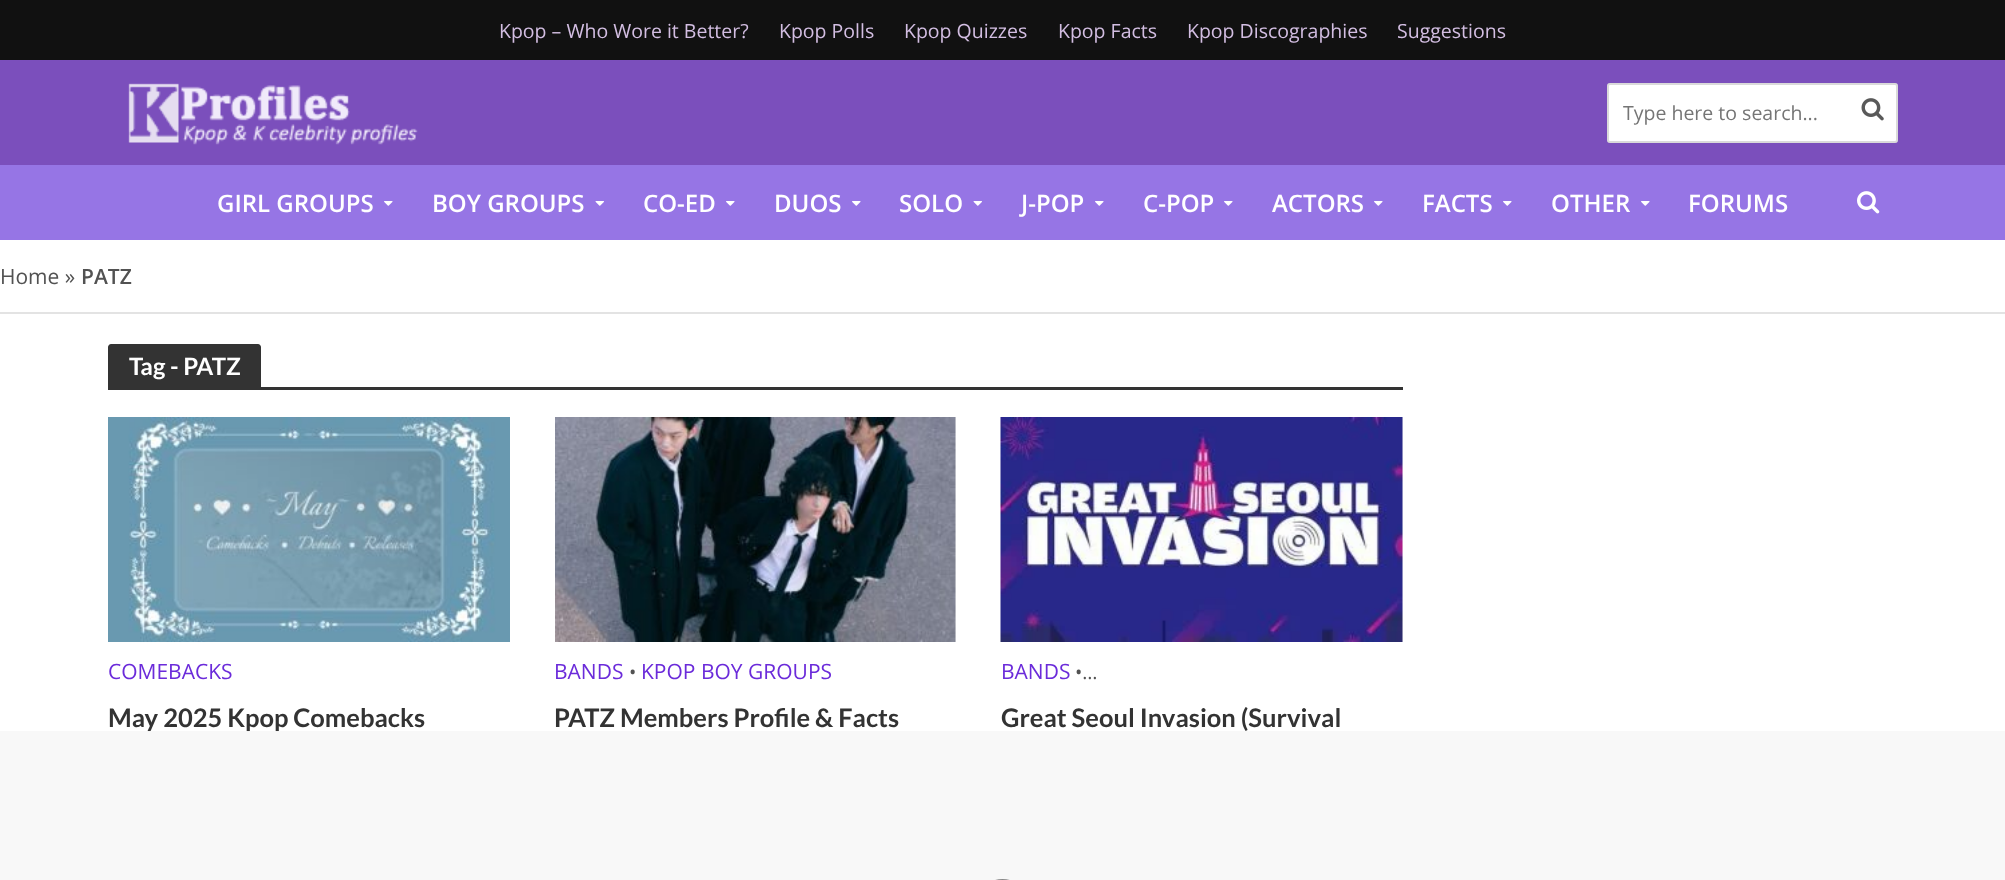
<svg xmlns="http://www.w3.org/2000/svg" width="2005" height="880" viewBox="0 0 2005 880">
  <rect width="100%" height="100%" fill="#ffffff"/>
  <rect x="0" y="0" width="2005" height="60" fill="#111111"/>
  <text x="499" y="38" font-family="Open Sans" font-size="19.5" fill="#d3bee2">Kpop – Who Wore it Better?</text>
  <text x="779" y="38" font-family="Open Sans" font-size="19.5" fill="#d3bee2">Kpop Polls</text>
  <text x="904" y="38" font-family="Open Sans" font-size="19.5" fill="#d3bee2">Kpop Quizzes</text>
  <text x="1058" y="38" font-family="Open Sans" font-size="19.5" fill="#d3bee2">Kpop Facts</text>
  <text x="1187" y="38" font-family="Open Sans" font-size="19.5" fill="#d3bee2">Kpop Discographies</text>
  <text x="1397" y="38" font-family="Open Sans" font-size="19.5" fill="#d3bee2">Suggestions</text>
  <rect x="0" y="60" width="2005" height="105" fill="#7b4fbc"/>
  <image x="128" y="83" width="290" height="62" href="img1.png"/>
  <rect x="1607" y="83" width="291" height="60" rx="3" fill="#ffffff"/>
  <rect x="1608" y="84" width="289" height="58" rx="2" fill="none" stroke="#444444" stroke-opacity="0.2" stroke-width="2"/>
  <text x="1623" y="120" font-family="Open Sans" font-size="19.5" fill="#757575">Type here to search...</text>
  <image x="1861" y="98" width="23" height="23" href="img2.png"/>
  <rect x="0" y="165" width="2005" height="75" fill="#9675e5"/>
  <text x="217" y="212" font-family="Open Sans" font-size="24" font-weight="600" fill="#ffffff">GIRL GROUPS</text>
  <image x="384" y="201" width="9" height="5" href="img3.png"/>
  <text x="432" y="212" font-family="Open Sans" font-size="24" font-weight="600" fill="#ffffff">BOY GROUPS</text>
  <image x="595" y="201" width="9" height="5" href="img4.png"/>
  <text x="643" y="212" font-family="Open Sans" font-size="24" font-weight="600" fill="#ffffff">CO-ED</text>
  <image x="726" y="201" width="9" height="5" href="img3.png"/>
  <text x="774" y="212" font-family="Open Sans" font-size="24" font-weight="600" fill="#ffffff">DUOS</text>
  <image x="852" y="201" width="9" height="5" href="img3.png"/>
  <text x="899" y="212" font-family="Open Sans" font-size="24" font-weight="600" fill="#ffffff">SOLO</text>
  <image x="973" y="201" width="9" height="5" href="img4.png"/>
  <text x="1021" y="212" font-family="Open Sans" font-size="24" font-weight="600" fill="#ffffff">J-POP</text>
  <image x="1095" y="201" width="9" height="5" href="img3.png"/>
  <text x="1143" y="212" font-family="Open Sans" font-size="24" font-weight="600" fill="#ffffff">C-POP</text>
  <image x="1224" y="201" width="9" height="5" href="img3.png"/>
  <text x="1272" y="212" font-family="Open Sans" font-size="24" font-weight="600" fill="#ffffff">ACTORS</text>
  <image x="1374" y="201" width="9" height="5" href="img3.png"/>
  <text x="1422" y="212" font-family="Open Sans" font-size="24" font-weight="600" fill="#ffffff">FACTS</text>
  <image x="1503" y="201" width="9" height="5" href="img3.png"/>
  <text x="1551" y="212" font-family="Open Sans" font-size="24" font-weight="600" fill="#ffffff">OTHER</text>
  <image x="1641" y="201" width="9" height="5" href="img3.png"/>
  <text x="1688" y="212" font-family="Open Sans" font-size="24" font-weight="600" fill="#ffffff">FORUMS</text>
  <image x="1857" y="191" width="23" height="23" href="img5.png"/>
  <rect x="0" y="312" width="2005" height="2" fill="#e3e3e3"/>
  <text x="0" y="284" font-family="Open Sans" font-size="21" fill="#525252">Home »</text>
  <text x="81" y="284" font-family="Open Sans" font-size="21" font-weight="600" fill="#525252">PATZ</text>
  <path d="M111 344H258C259.5 344 261 345.5 261 347V387H108V347C108 345.5 109.5 344 111 344Z" fill="#333333"/>
  <text x="129" y="375" font-family="Lato" font-size="24" font-weight="bold" fill="#ffffff">Tag - PATZ</text>
  <rect x="108" y="387" width="1295" height="3" fill="#333333"/>
  <image x="108" y="417" width="402" height="225" href="img6.png"/>
  <text x="108" y="679" font-family="Open Sans" font-size="21" fill="#6b2bda">COMEBACKS</text>
  <text x="108" y="727" font-family="Lato" font-size="25.5" font-weight="bold" fill="#333333">May 2025 Kpop Comebacks</text>
  <rect x="955" y="417" width="1" height="225" fill="#f3f3f3"/>
  <image x="555" y="417" width="401" height="225" href="img7.png"/>
  <text x="554" y="679" font-family="Open Sans" font-size="21" fill="#6b2bda">BANDS</text>
  <text x="629" y="679" font-family="Open Sans" font-size="19.5" fill="#525252">•</text>
  <text x="641" y="679" font-family="Open Sans" font-size="21" fill="#6b2bda">KPOP BOY GROUPS</text>
  <text x="554" y="727" font-family="Lato" font-size="25.5" font-weight="bold" fill="#333333">PATZ Members Profile &amp; Facts</text>
  <rect x="1402" y="417" width="1" height="225" fill="#f3f3f3"/>
  <image x="1000" y="417" width="403" height="225" href="img8.png"/>
  <text x="1001" y="679" font-family="Open Sans" font-size="21" fill="#6b2bda">BANDS</text>
  <text x="1075" y="679" font-family="Open Sans" font-size="19.5" fill="#525252">•…</text>
  <text x="1001" y="727" font-family="Lato" font-size="25.5" font-weight="bold" fill="#333333">Great Seoul Invasion (Survival</text>
  <rect x="0" y="731" width="2005" height="149" fill="#f7f7f7" fill-opacity="0.9"/>
  <rect x="987" y="880" width="31" height="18" rx="15.5" fill="none" stroke="#888888" stroke-width="2"/>
</svg>
